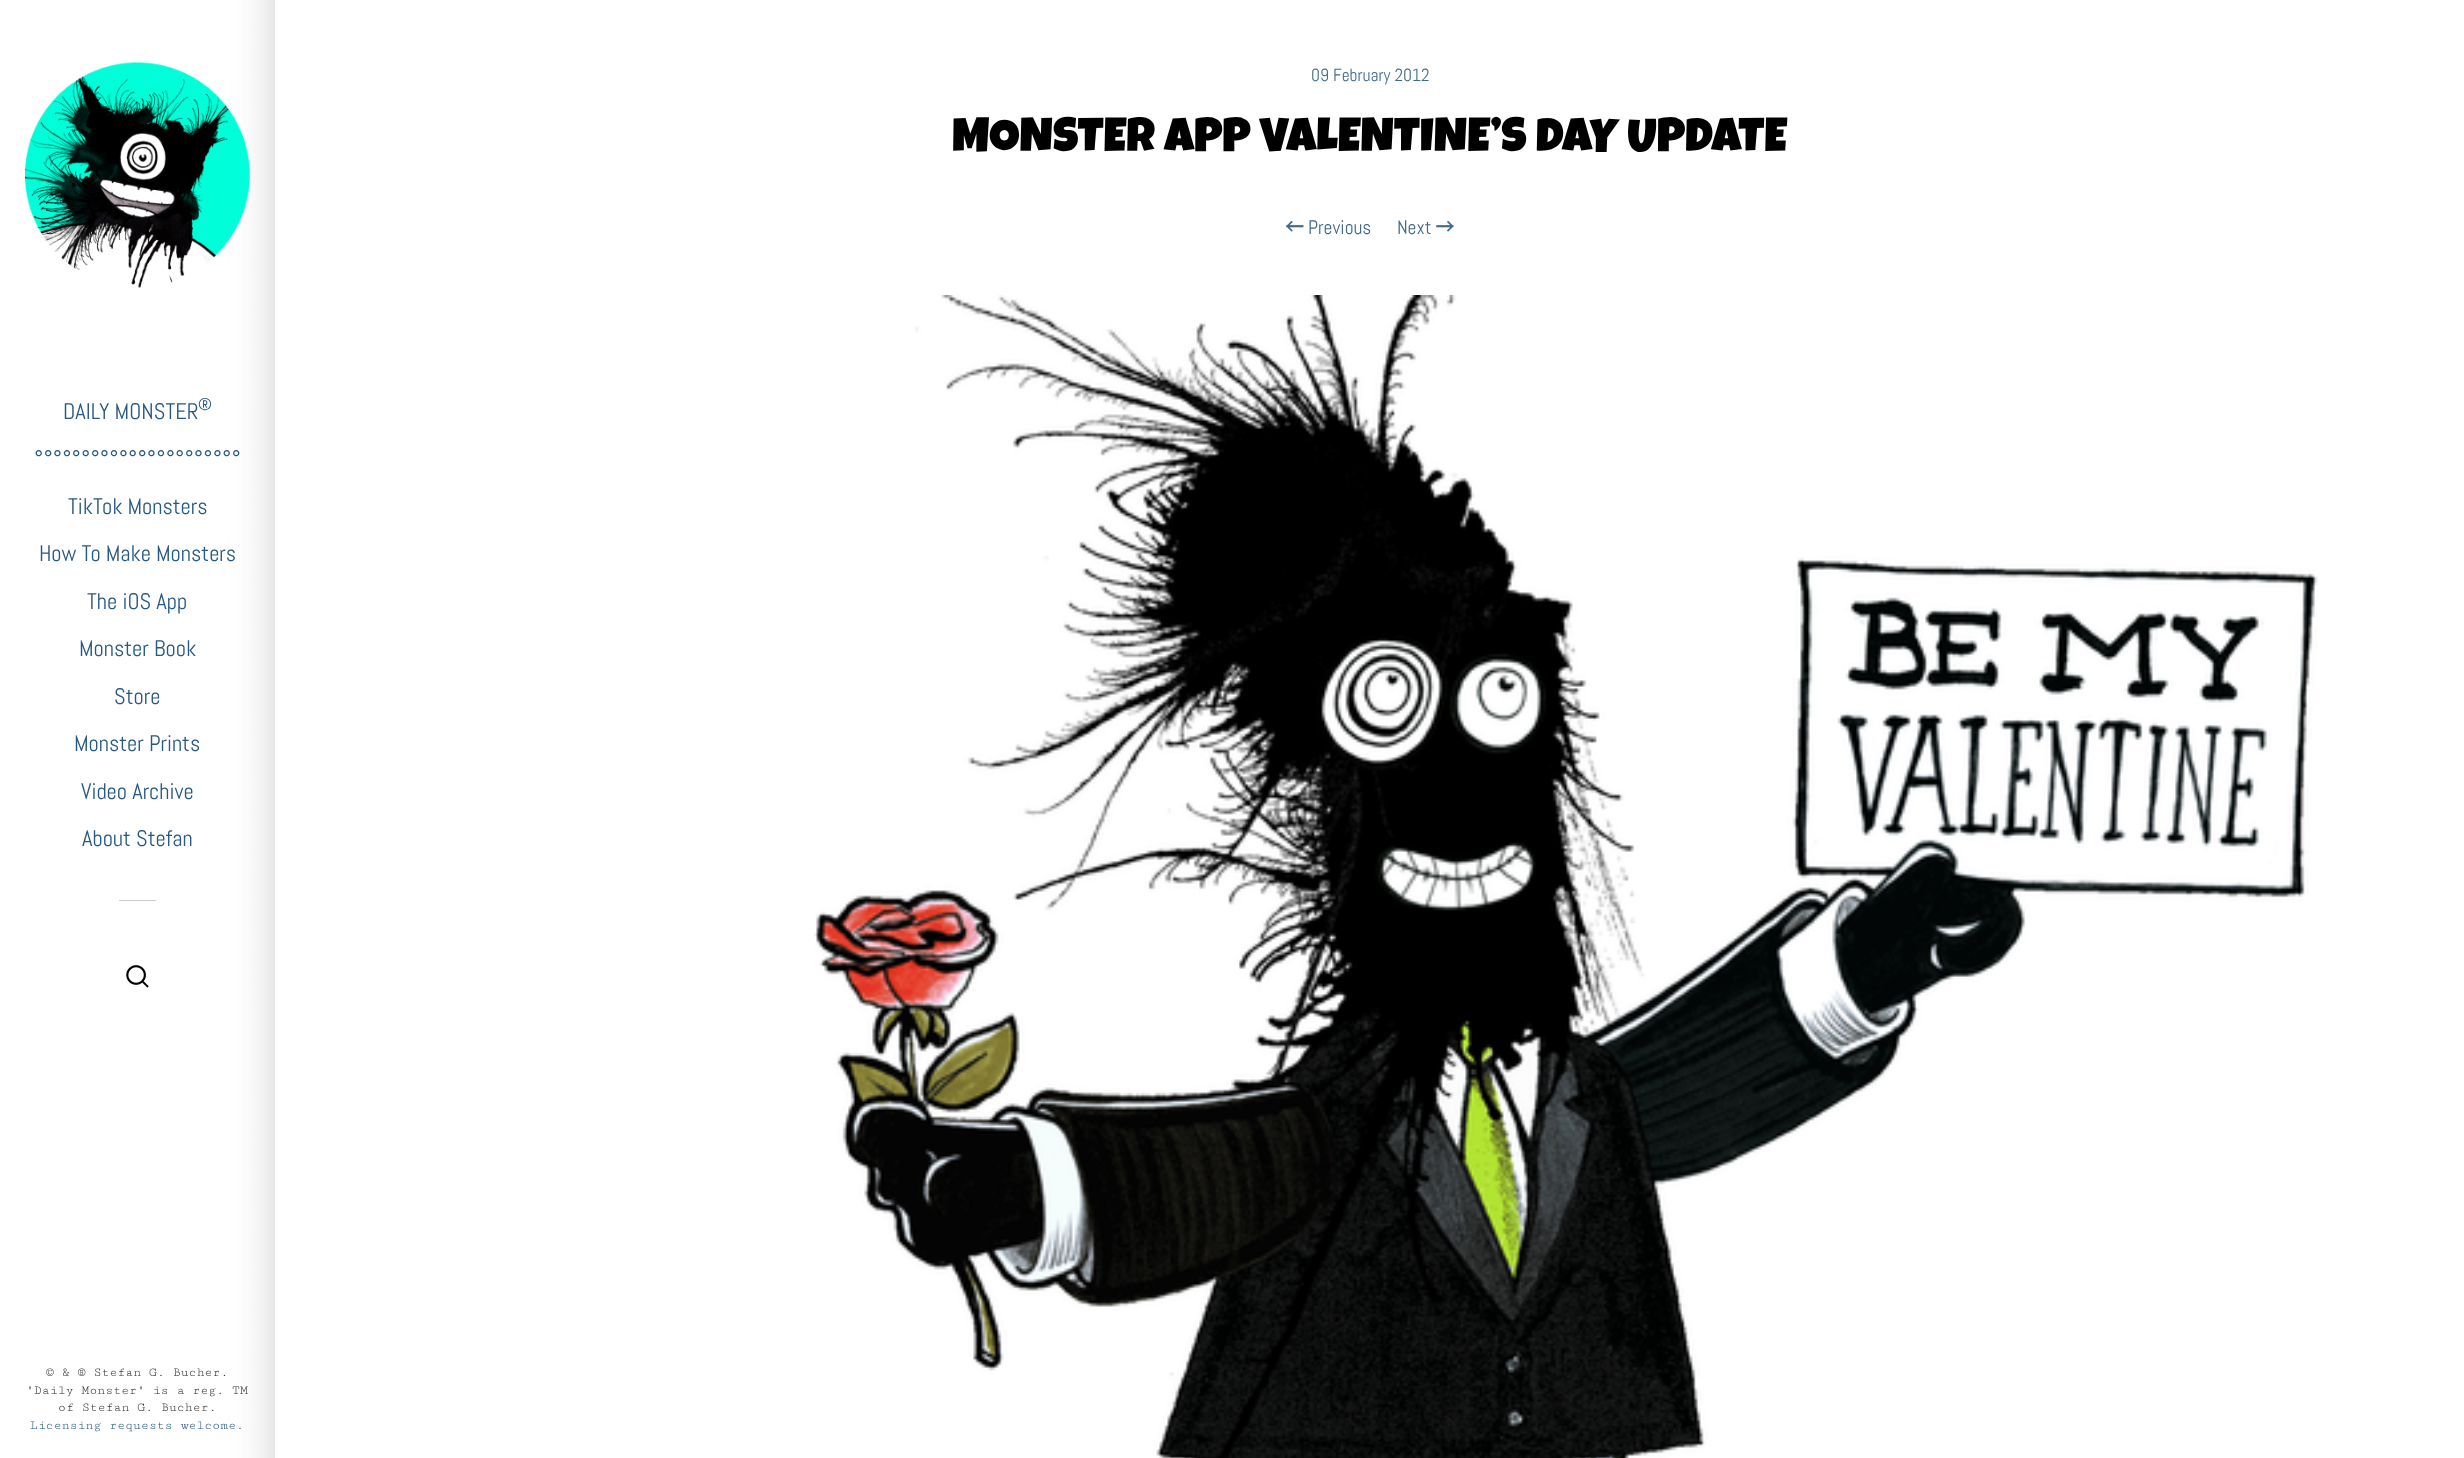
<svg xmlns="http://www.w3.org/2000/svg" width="2464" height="1458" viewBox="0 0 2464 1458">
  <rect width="100%" height="100%" fill="#ffffff"/>
  <text x="1311" y="81" font-family="Abel" font-size="17.5" fill="#3f6a8c">09 February 2012</text>
  <text x="952" y="151" font-family="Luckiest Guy" font-size="47.5" fill="#000000">MONSTER APP VALENTINE’S DAY UPDATE</text>
  <image x="1286" y="220" width="18" height="12" href="img1.png"/>
  <text x="1308" y="234" font-family="Abel" font-size="19.5" fill="#3f6a8c">Previous</text>
  <text x="1397" y="234" font-family="Abel" font-size="19.5" fill="#3f6a8c">Next</text>
  <image x="1436" y="220" width="18" height="12" href="img2.png"/>
  <image x="814" y="295" width="1504" height="1163" href="img3.png"/>
  <image x="0" y="0" width="275" height="1458" href="img4.png"/>
  <image x="25" y="62" width="225" height="226" href="img5.png"/>
  <text x="63" y="419" font-family="Abel" font-size="22.5" fill="#265884">DAILY MONSTER</text>
  <text x="198" y="410" font-family="Abel" font-size="17" fill="#265884">®</text>
  <text x="34" y="466" font-family="Abel" font-size="22.5" fill="#265884">°°°°°°°°°°°°°°°°°°°°°°</text>
  <text x="68" y="514" font-family="Abel" font-size="22.5" fill="#265884">TikTok Monsters</text>
  <text x="39" y="561" font-family="Abel" font-size="22.5" fill="#265884">How To Make Monsters</text>
  <text x="87" y="609" font-family="Abel" font-size="22.5" fill="#265884">The iOS App</text>
  <text x="79" y="656" font-family="Abel" font-size="22.5" fill="#265884">Monster Book</text>
  <text x="114" y="704" font-family="Abel" font-size="22.5" fill="#265884">Store</text>
  <text x="74" y="751" font-family="Abel" font-size="22.5" fill="#265884">Monster Prints</text>
  <text x="81" y="799" font-family="Abel" font-size="22.5" fill="#265884">Video Archive</text>
  <text x="82" y="846" font-family="Abel" font-size="22.5" fill="#265884">About Stefan</text>
  <rect x="119" y="900" width="37" height="1" fill="#cccccc"/>
  <image x="126" y="965" width="23" height="23" href="img6.png"/>
  <text x="46" y="1376" font-family="Cutive Mono" font-size="13.1" fill="#353535">© &amp; ® Stefan G. Bucher.</text>
  <text x="26" y="1394" font-family="Cutive Mono" font-size="13.1" fill="#353535">"Daily Monster" is a reg. TM</text>
  <text x="58" y="1411" font-family="Cutive Mono" font-size="13.1" fill="#353535">of Stefan G. Bucher.</text>
  <text x="30" y="1429" font-family="Cutive Mono" font-size="13.1" fill="#265884">Licensing requests welcome.</text>
</svg>
